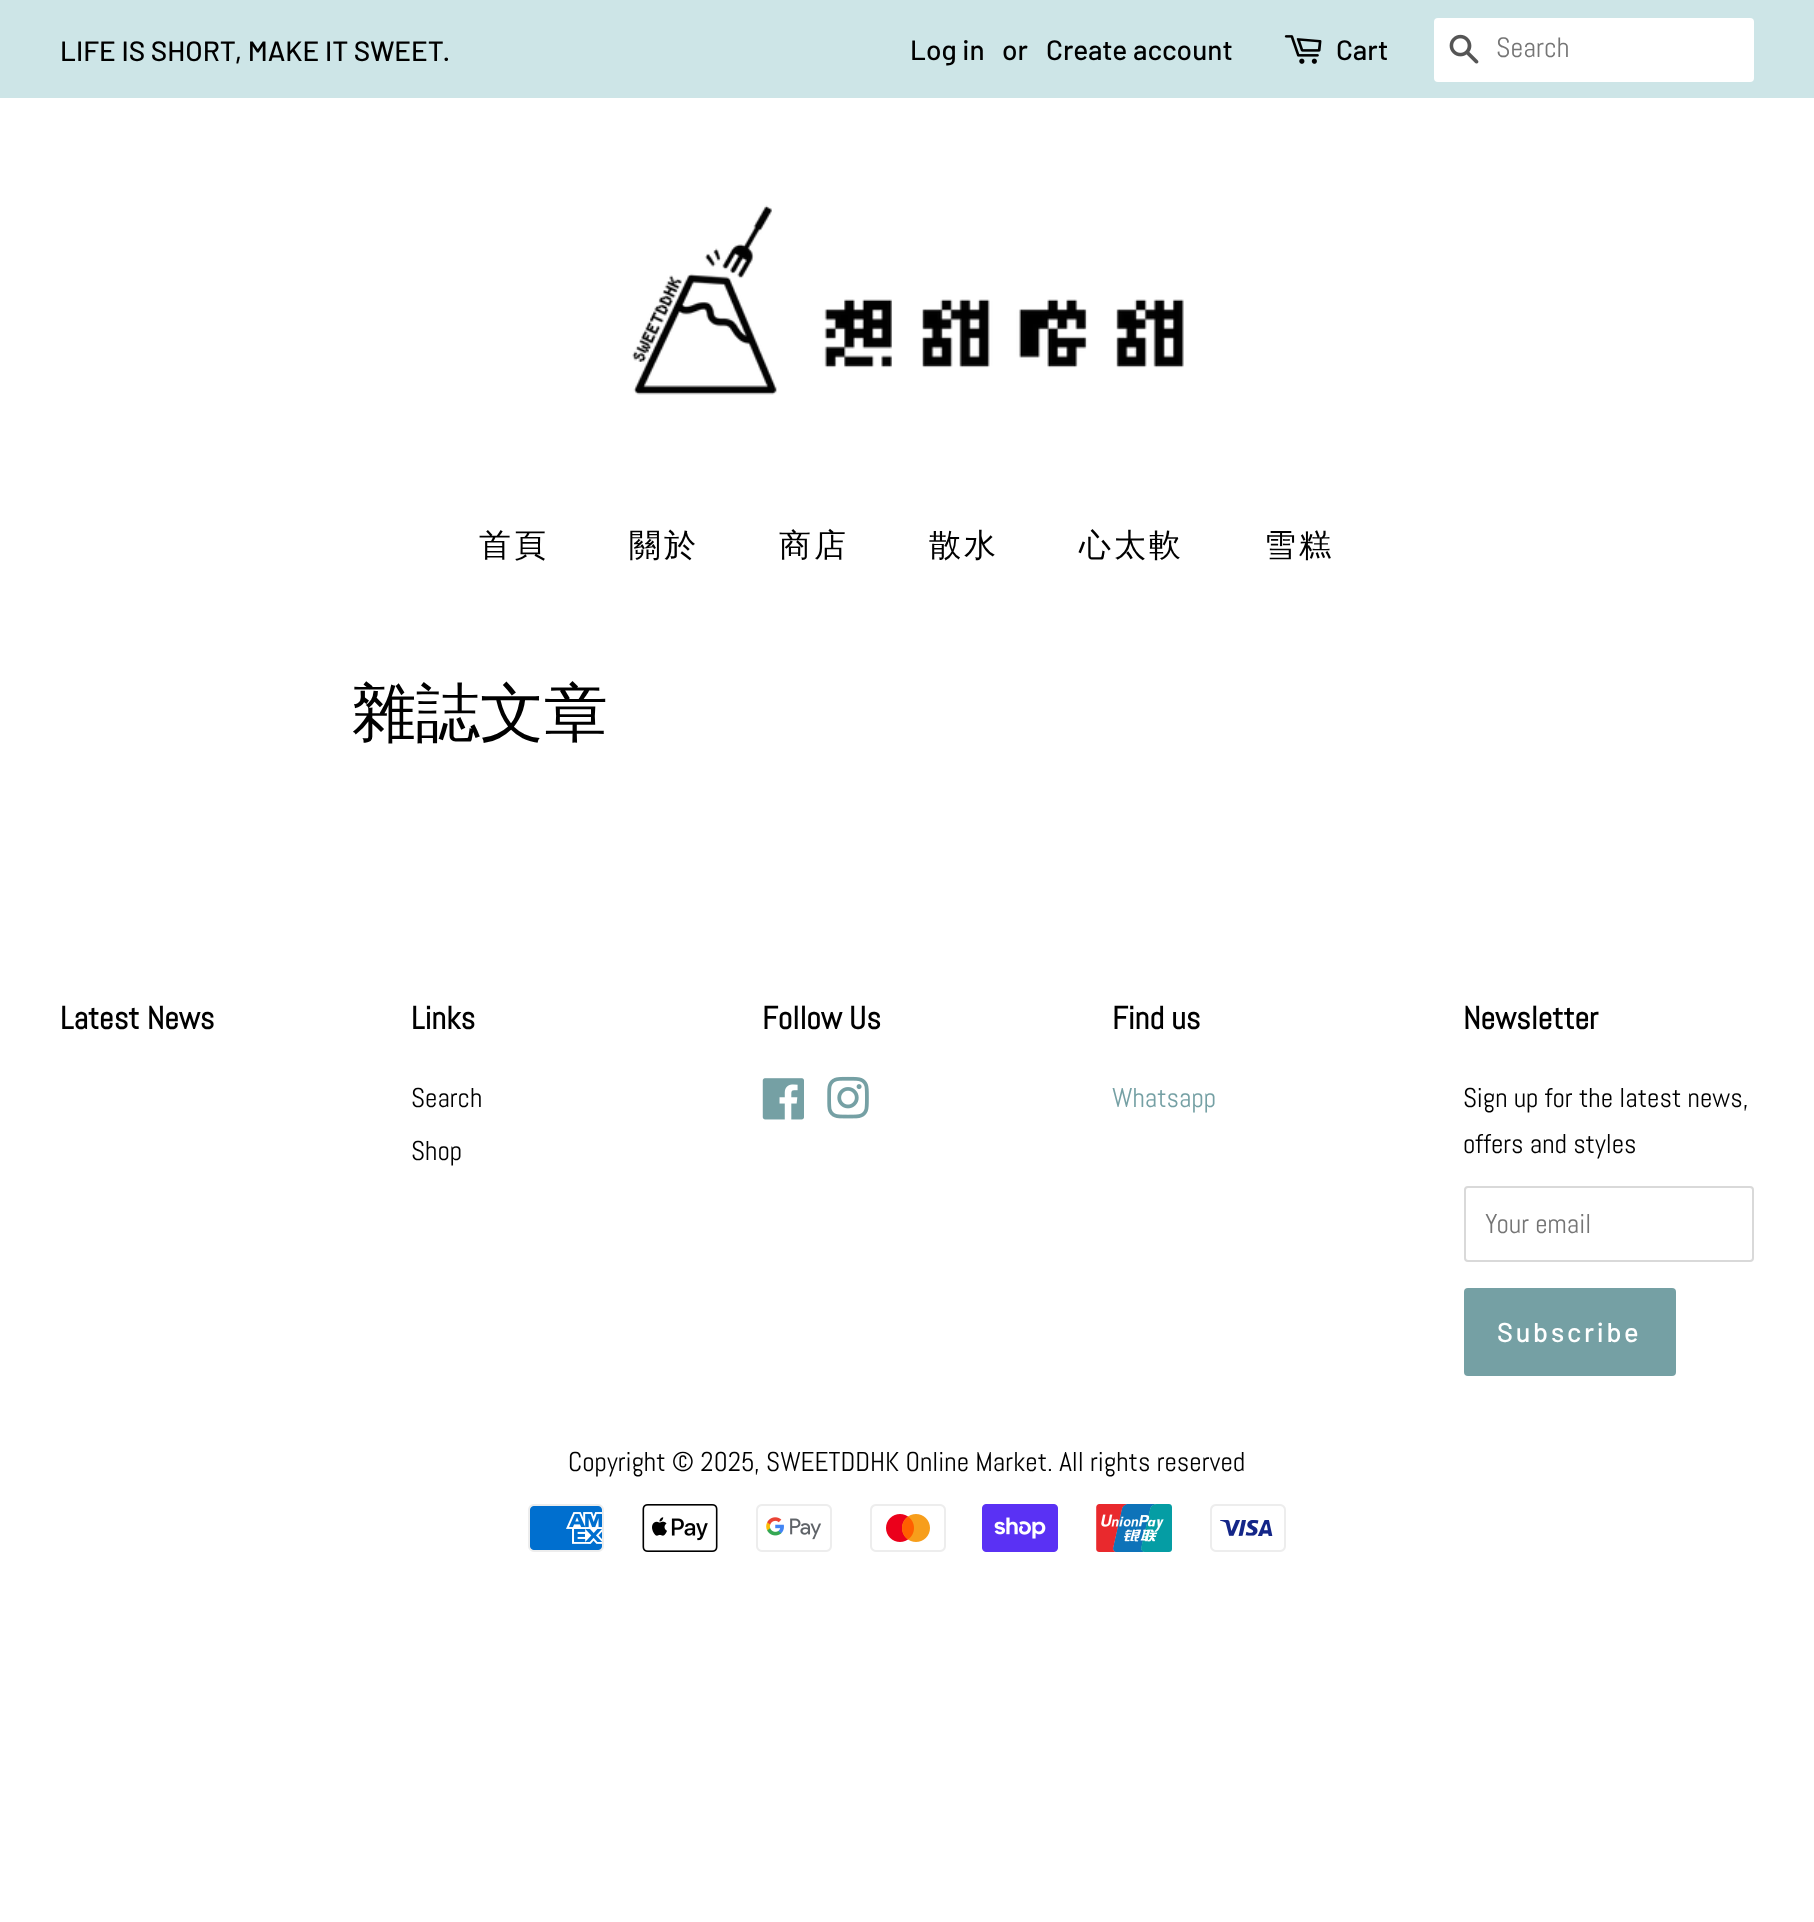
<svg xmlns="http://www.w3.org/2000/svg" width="1814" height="1922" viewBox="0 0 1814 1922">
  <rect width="100%" height="100%" fill="#ffffff"/>
  <rect x="0" y="0" width="1814" height="98" fill="#cde5e7"/>
  <text x="60" y="61" font-family="Barlow" font-size="28" font-weight="500" fill="#000000">LIFE IS SHORT, MAKE IT SWEET.</text>
  <text x="910" y="60" font-family="Barlow" font-size="28" font-weight="500" fill="#000000">Log in</text>
  <text x="1002" y="60" font-family="Barlow" font-size="28" font-weight="500" fill="#000000">or</text>
  <text x="1046" y="60" font-family="Barlow" font-size="28" font-weight="500" fill="#000000">Create account</text>
  <image x="1284" y="35" width="38" height="29" href="img1.png"/>
  <text x="1336" y="60" font-family="Barlow" font-size="28" font-weight="500" fill="#000000">Cart</text>
  <rect x="1434" y="18" width="320" height="64" rx="4" fill="#ffffff"/>
  <image x="1449" y="34" width="30" height="30" href="img2.png"/>
  <text x="1496" y="57" font-family="Abel" font-size="28" fill="#757575">Search</text>
  <image x="632" y="205" width="552" height="190" href="img3.png"/>
  <text x="479" y="556" font-family="WenQuanYi Zen Hei" font-size="32" font-weight="500" letter-spacing="3" fill="#000000">首頁</text>
  <text x="629" y="556" font-family="WenQuanYi Zen Hei" font-size="32" font-weight="500" letter-spacing="3" fill="#000000">關於</text>
  <text x="779" y="556" font-family="WenQuanYi Zen Hei" font-size="32" font-weight="500" letter-spacing="3" fill="#000000">商店</text>
  <text x="929" y="556" font-family="WenQuanYi Zen Hei" font-size="32" font-weight="500" letter-spacing="3" fill="#000000">散水</text>
  <text x="1079" y="556" font-family="WenQuanYi Zen Hei" font-size="32" font-weight="500" letter-spacing="3" fill="#000000">心太軟</text>
  <text x="1264" y="556" font-family="WenQuanYi Zen Hei" font-size="32" font-weight="500" letter-spacing="3" fill="#000000">雪糕</text>
  <text x="352" y="735" font-family="WenQuanYi Zen Hei" font-size="64" font-weight="500" fill="#000000">雜誌文章</text>
  <text x="60" y="1029" font-family="Abel" font-size="32" font-weight="bold" fill="#000000">Latest News</text>
  <text x="411" y="1029" font-family="Abel" font-size="32" font-weight="bold" fill="#000000">Links</text>
  <text x="411" y="1107" font-family="Abel" font-size="27.2" fill="#000000">Search</text>
  <text x="411" y="1160" font-family="Abel" font-size="27.2" fill="#000000">Shop</text>
  <text x="762" y="1029" font-family="Abel" font-size="32" font-weight="bold" fill="#000000">Follow Us</text>
  <image x="762" y="1078" width="42" height="42" href="img4.png"/>
  <image x="827" y="1076" width="42" height="43" href="img5.png"/>
  <text x="1112" y="1029" font-family="Abel" font-size="32" font-weight="bold" fill="#000000">Find us</text>
  <text x="1112" y="1107" font-family="Abel" font-size="27.2" fill="#75a0a4">Whatsapp</text>
  <text x="1463" y="1029" font-family="Abel" font-size="32" font-weight="bold" fill="#000000">Newsletter</text>
  <text x="1463" y="1107" font-family="Abel" font-size="27.2" fill="#000000">Sign up for the latest news,</text>
  <text x="1463" y="1153" font-family="Abel" font-size="27.2" fill="#000000">offers and styles</text>
  <rect x="1465" y="1187" width="288" height="74" rx="3" fill="none" stroke="#d9d9d9" stroke-width="2"/>
  <text x="1485" y="1233" font-family="Abel" font-size="27.2" fill="#757575">Your email</text>
  <rect x="1464" y="1288" width="212" height="88" rx="4" fill="#75a0a4"/>
  <text x="1497" y="1342" font-family="Barlow" font-size="27.2" font-weight="500" letter-spacing="2.75" fill="#ffffff">Subscribe</text>
  <text x="568" y="1471" font-family="Abel" font-size="27.2" fill="#000000">Copyright © 2025, SWEETDDHK Online Market. All rights reserved</text>
  <image x="528" y="1504" width="76" height="48" href="img6.png"/>
  <image x="642" y="1504" width="76" height="48" href="img7.png"/>
  <image x="756" y="1504" width="76" height="48" href="img8.png"/>
  <image x="870" y="1504" width="76" height="48" href="img9.png"/>
  <image x="982" y="1504" width="76" height="48" href="img10.png"/>
  <image x="1096" y="1504" width="76" height="48" href="img11.png"/>
  <image x="1210" y="1504" width="76" height="48" href="img12.png"/>
</svg>
